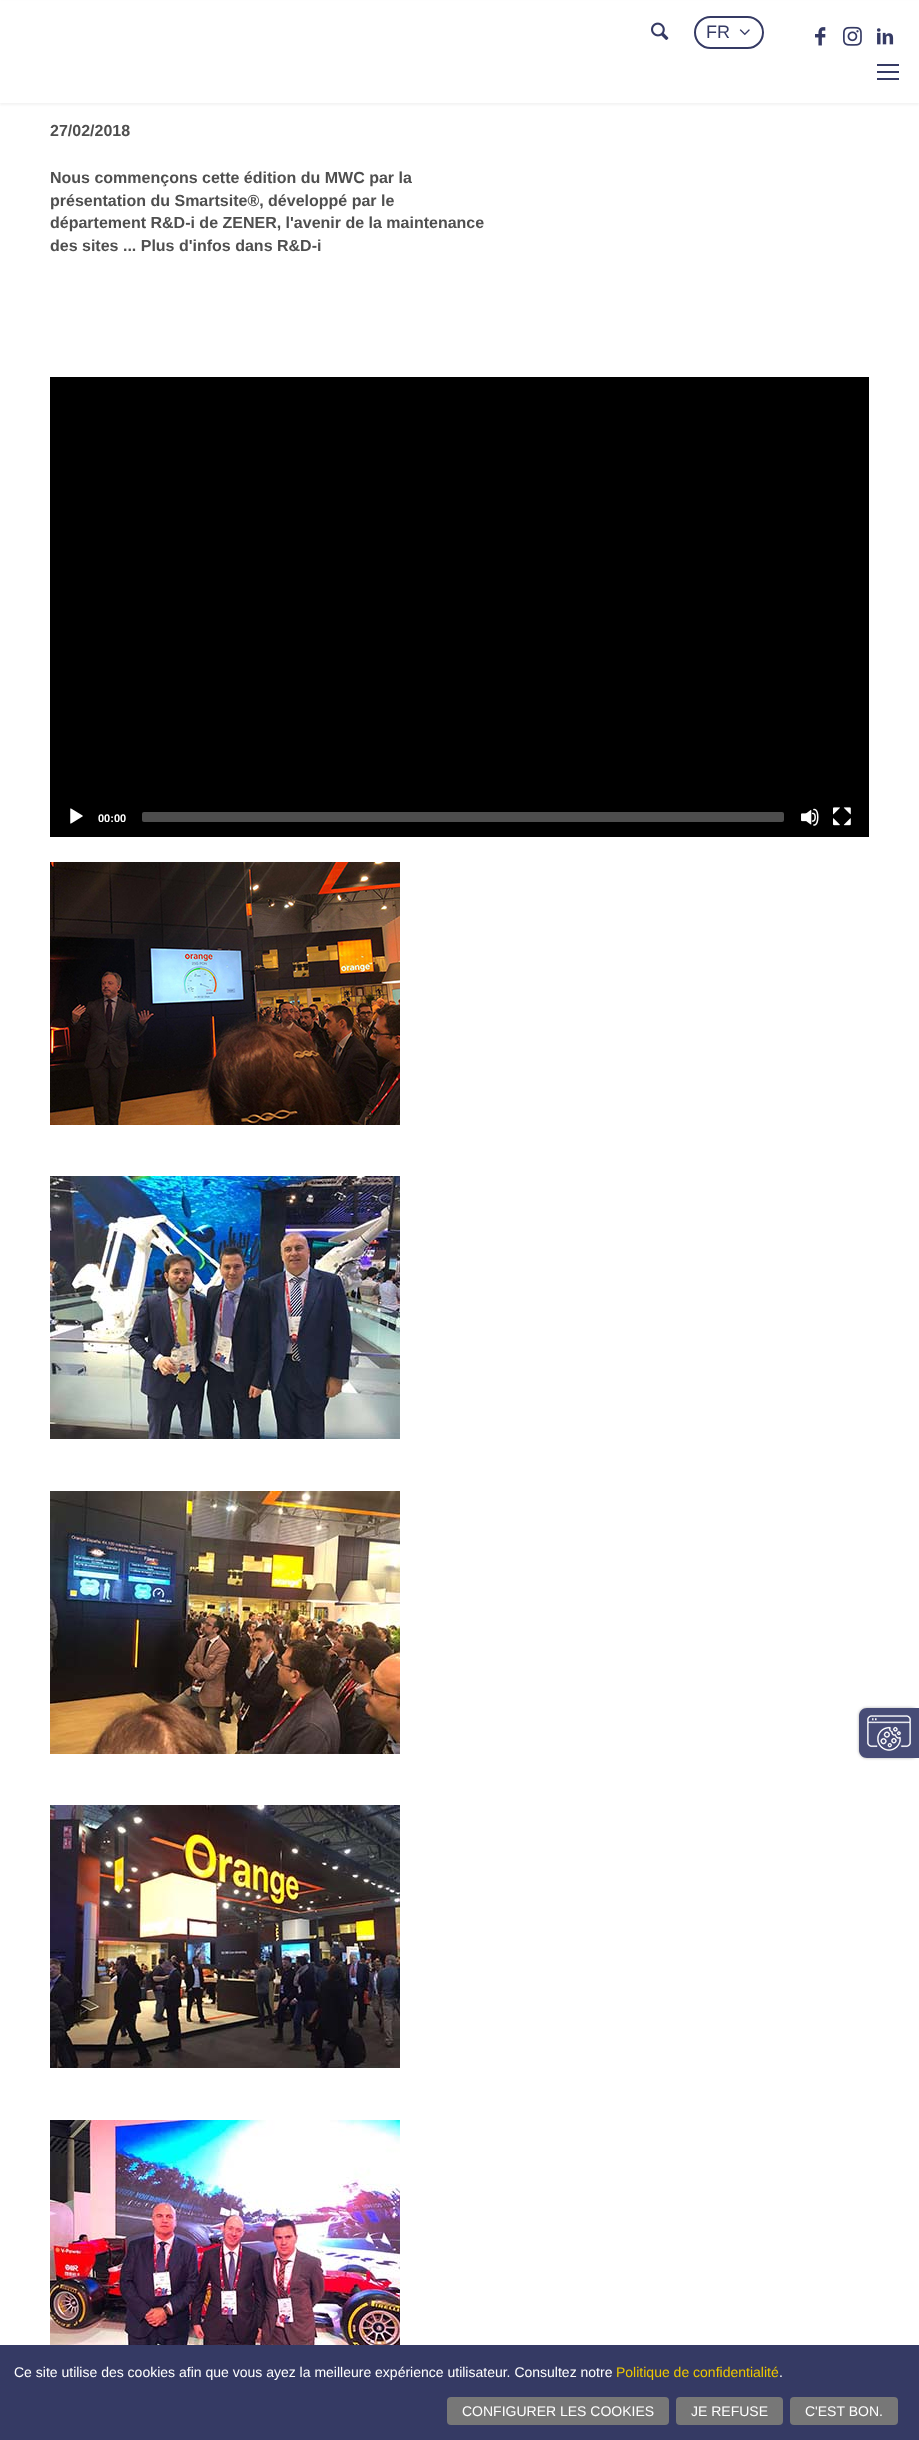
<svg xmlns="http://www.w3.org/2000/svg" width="919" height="2440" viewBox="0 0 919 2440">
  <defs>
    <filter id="blur1" x="-50%" y="-200%" width="200%" height="500%"><feGaussianBlur stdDeviation="1"/></filter>
    <filter id="blur2" x="-50%" y="-200%" width="200%" height="500%"><feGaussianBlur stdDeviation="1.5"/></filter>
  </defs>
  <rect width="100%" height="100%" fill="#ffffff"/>
  <rect x="0" y="2" width="919" height="103" fill="#f3f3f3" filter="url(#blur1)"/>
  <rect x="0" y="1" width="919" height="102" fill="#ffffff"/>
  <image x="651" y="22" width="18" height="18" href="img1.png"/>
  <rect x="695" y="17" width="68" height="31" rx="15.5" fill="none" stroke="#353a64" stroke-width="2"/>
  <text x="706" y="38" font-family="Liberation Sans" font-size="18" fill="#353a64">FR</text>
  <image x="739" y="29" width="11" height="7" href="img2.png"/>
  <image x="815" y="27" width="11" height="19" href="img3.png"/>
  <image x="843" y="26" width="19" height="20" href="img4.png"/>
  <image x="877" y="28" width="17" height="17" href="img5.png"/>
  <rect x="877" y="64" width="22" height="2" fill="#353a64"/>
  <rect x="877" y="71" width="22" height="2" fill="#353a64"/>
  <rect x="877" y="78" width="22" height="2" fill="#353a64"/>
  <text x="50" y="136" font-family="Liberation Sans" font-size="16" font-weight="bold" fill="#4f4f4f">27/02/2018</text>
  <text x="50" y="183" font-family="Liberation Sans" font-size="16" font-weight="bold" fill="#4f4f4f">Nous commençons cette édition du MWC par la</text>
  <text x="50" y="206" font-family="Liberation Sans" font-size="16" font-weight="bold" fill="#4f4f4f">présentation du Smartsite®, développé par le</text>
  <text x="50" y="228" font-family="Liberation Sans" font-size="16" font-weight="bold" fill="#4f4f4f">département R&amp;D-i de ZENER, l'avenir de la maintenance</text>
  <text x="50" y="251" font-family="Liberation Sans" font-size="16" font-weight="bold" fill="#4f4f4f">des sites ... Plus d'infos dans R&amp;D-i</text>
  <rect x="50" y="377" width="819" height="460" fill="#000000"/>
  <image x="70" y="808" width="13" height="16" href="img6.png"/>
  <text x="98" y="822" font-family="Liberation Sans" font-size="11" font-weight="bold" fill="#ffffff">00:00</text>
  <rect x="142" y="812" width="642" height="10" rx="2" fill="#4d4d4d"/>
  <image x="801" y="808" width="18" height="18" href="img7.png"/>
  <image x="833" y="807" width="18" height="19" href="img8.png"/>
  <image x="50" y="862" width="350" height="263" href="img9.png"/>
  <image x="50" y="1176" width="350" height="263" href="img10.png"/>
  <image x="50" y="1491" width="350" height="263" href="img11.png"/>
  <image x="50" y="1805" width="350" height="263" href="img12.png"/>
  <image x="50" y="2120" width="350" height="225" href="img13.png"/>
  <rect x="859" y="1708" width="60" height="50" rx="8" fill="#aaaaaa" filter="url(#blur2)"/>
  <path d="M867 1708H919V1758H867C862.5 1758 859 1754.5 859 1750V1716C859 1711.5 862.5 1708 867 1708Z" fill="#474c76"/>
  <image x="867" y="1715" width="44" height="36" href="img14.png"/>
  <rect x="0" y="2345" width="919" height="95" fill="#353a64"/>
  <text x="14" y="2377" font-family="Liberation Sans" font-size="14" fill="#ffffff">Ce site utilise des cookies afin que vous ayez la meilleure expérience utilisateur. Consultez notre</text>
  <text x="616" y="2377" font-family="Liberation Sans" font-size="14" fill="#eec800">Politique de confidentialité</text>
  <text x="779" y="2377" font-family="Liberation Sans" font-size="14" fill="#ffffff">.</text>
  <rect x="447" y="2397" width="222" height="28" rx="4" fill="#777777"/>
  <text x="462" y="2416" font-family="Liberation Sans" font-size="14" fill="#ffffff">CONFIGURER LES COOKIES</text>
  <rect x="676" y="2397" width="107" height="28" rx="4" fill="#777777"/>
  <text x="691" y="2416" font-family="Liberation Sans" font-size="14" fill="#ffffff">JE REFUSE</text>
  <rect x="790" y="2397" width="108" height="28" rx="4" fill="#777777"/>
  <text x="805" y="2416" font-family="Liberation Sans" font-size="14" fill="#ffffff">C'EST BON.</text>
</svg>
